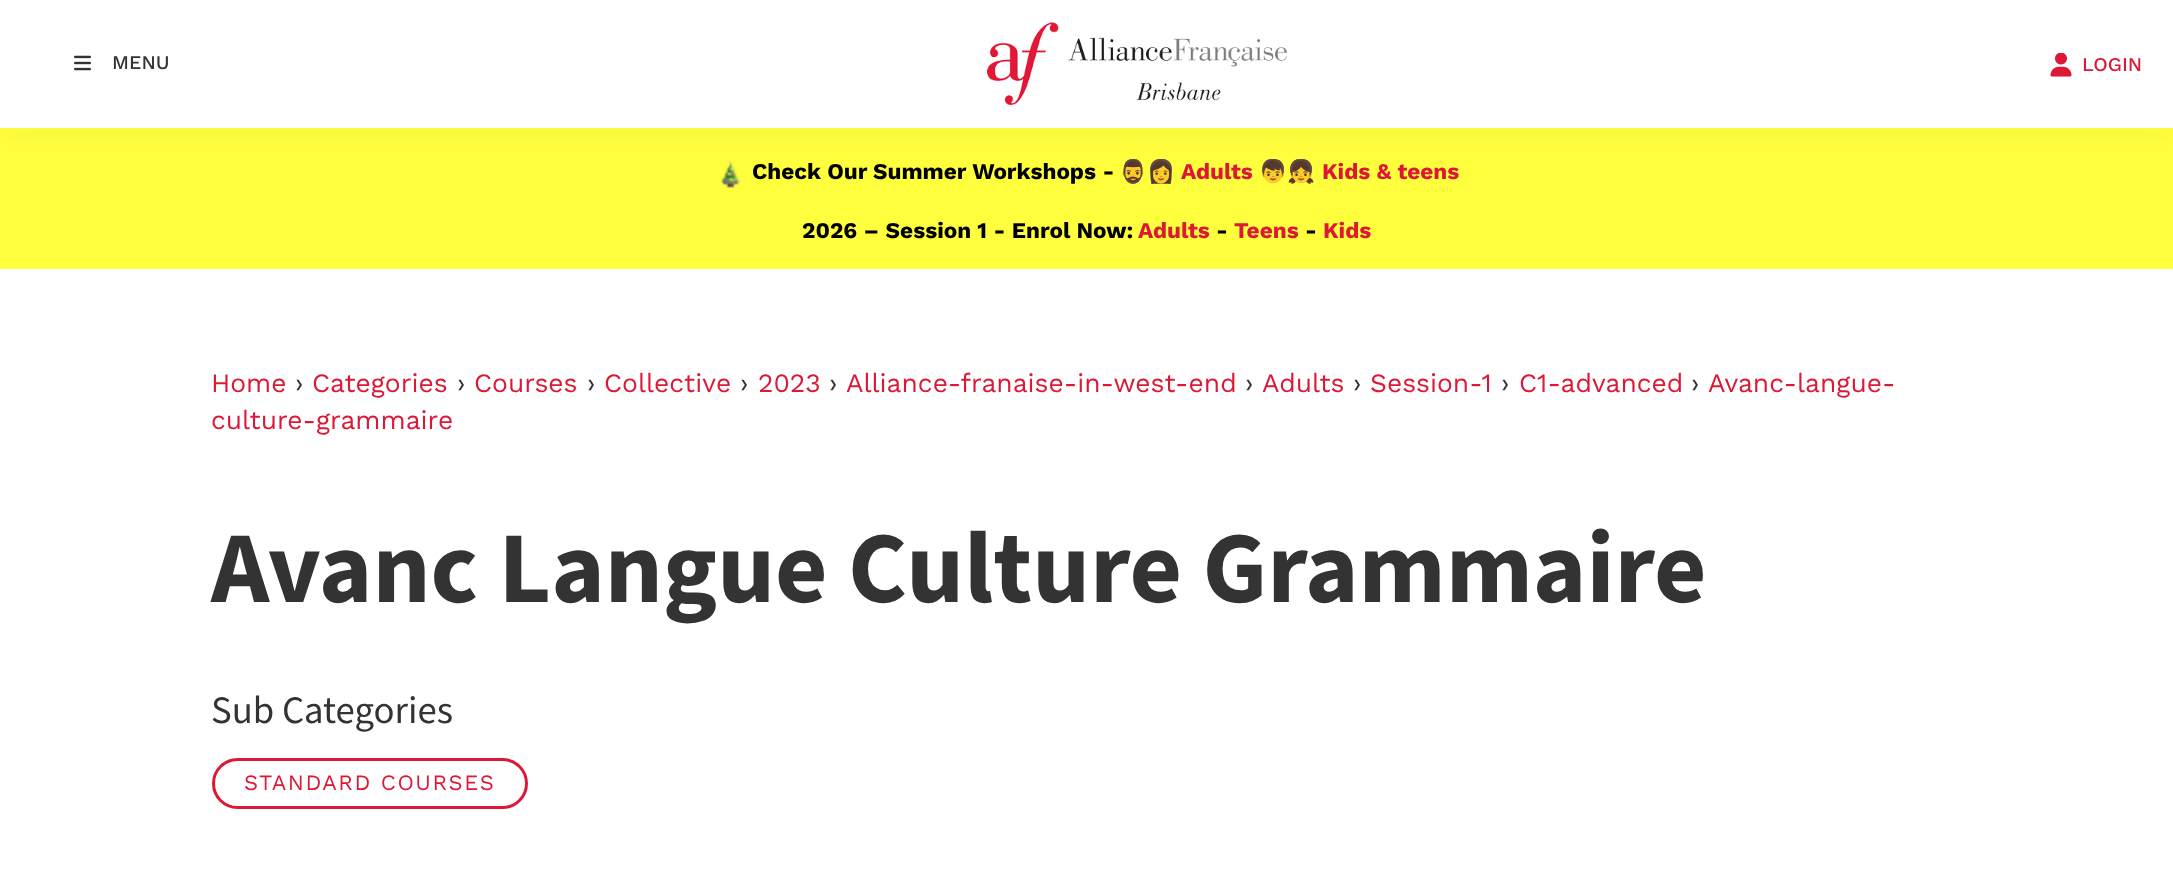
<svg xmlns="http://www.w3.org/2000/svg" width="2173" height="882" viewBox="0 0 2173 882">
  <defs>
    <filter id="blur1" x="-50%" y="-200%" width="200%" height="500%"><feGaussianBlur stdDeviation="15"/></filter>
  </defs>
  <rect width="100%" height="100%" fill="#ffffff"/>
  <rect x="0" y="128" width="2173" height="141" fill="#ffff3d"/>
  <image x="721" y="160" width="19" height="28" href="img4.png"/>
  <rect x="2" y="3" width="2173" height="128" fill="#333333" fill-opacity="0.05" filter="url(#blur1)"/>
  <rect x="0" y="0" width="2173" height="128" fill="#ffffff"/>
  <image x="74" y="55" width="17" height="16" href="img1.png"/>
  <text x="112" y="69" font-family="Work Sans" font-size="19.5" font-weight="500" fill="#333333">MENU</text>
  <image x="987" y="22" width="300" height="83" href="img2.png"/>
  <image x="2050" y="53" width="22" height="24" href="img3.png"/>
  <text x="2082" y="71" font-family="Work Sans" font-size="19.5" font-weight="500" fill="#dc1836">LOGIN</text>
  <text x="752" y="179" font-family="Work Sans" font-size="22.5" font-weight="bold" fill="#000000">Check Our</text>
  <text x="873" y="179" font-family="Work Sans" font-size="22.5" font-weight="bold" fill="#000000">Summer Workshops -</text>
  <text x="1119" y="179" font-family="Noto Color Emoji" font-size="22.5" font-weight="bold" fill="#000000">🧔‍♂️👩</text>
  <text x="1181" y="179" font-family="Work Sans" font-size="22.5" font-weight="bold" fill="#dc1836">Adults</text>
  <text x="1259" y="179" font-family="Noto Color Emoji" font-size="22.5" font-weight="bold" fill="#000000">👦👧</text>
  <text x="1322" y="179" font-family="Work Sans" font-size="22.5" font-weight="bold" fill="#dc1836">Kids &amp; teens</text>
  <text x="802" y="238" font-family="Work Sans" font-size="22.5" font-weight="bold" fill="#000000">2026 – Session 1 - Enrol Now:</text>
  <text x="1138" y="238" font-family="Work Sans" font-size="22.5" font-weight="bold" fill="#dc1836">Adults</text>
  <text x="1216" y="238" font-family="Work Sans" font-size="22.5" font-weight="bold" fill="#000000">-</text>
  <text x="1234" y="238" font-family="Work Sans" font-size="22.5" font-weight="bold" fill="#dc1836">Teens</text>
  <text x="1305" y="238" font-family="Work Sans" font-size="22.5" font-weight="bold" fill="#000000">-</text>
  <text x="1323" y="238" font-family="Work Sans" font-size="22.5" font-weight="bold" fill="#dc1836">Kids</text>
  <text x="211" y="392" font-family="Work Sans" font-size="26.4" fill="#dc1836">Home</text>
  <text x="295" y="392" font-family="Work Sans" font-size="26.4" fill="#333333">›</text>
  <text x="312" y="392" font-family="Work Sans" font-size="26.4" fill="#dc1836">Categories</text>
  <text x="457" y="392" font-family="Work Sans" font-size="26.4" fill="#333333">›</text>
  <text x="474" y="392" font-family="Work Sans" font-size="26.4" fill="#dc1836">Courses</text>
  <text x="587" y="392" font-family="Work Sans" font-size="26.4" fill="#333333">›</text>
  <text x="604" y="392" font-family="Work Sans" font-size="26.4" fill="#dc1836">Collective</text>
  <text x="740" y="392" font-family="Work Sans" font-size="26.4" fill="#333333">›</text>
  <text x="758" y="392" font-family="Work Sans" font-size="26.4" fill="#dc1836">2023</text>
  <text x="829" y="392" font-family="Work Sans" font-size="26.4" fill="#333333">›</text>
  <text x="846" y="392" font-family="Work Sans" font-size="26.4" fill="#dc1836">Alliance-franaise-in-west-end</text>
  <text x="1245" y="392" font-family="Work Sans" font-size="26.4" fill="#333333">›</text>
  <text x="1262" y="392" font-family="Work Sans" font-size="26.4" fill="#dc1836">Adults</text>
  <text x="1353" y="392" font-family="Work Sans" font-size="26.4" fill="#333333">›</text>
  <text x="1370" y="392" font-family="Work Sans" font-size="26.4" fill="#dc1836">Session-1</text>
  <text x="1501" y="392" font-family="Work Sans" font-size="26.4" fill="#333333">›</text>
  <text x="1519" y="392" font-family="Work Sans" font-size="26.4" fill="#dc1836">C1-advanced</text>
  <text x="1691" y="392" font-family="Work Sans" font-size="26.4" fill="#333333">›</text>
  <text x="1708" y="392" font-family="Work Sans" font-size="26.4" fill="#dc1836">Avanc-langue-</text>
  <text x="211" y="429" font-family="Work Sans" font-size="26.4" fill="#dc1836">culture-grammaire</text>
  <text x="211" y="602" font-family="Mada" font-size="101.7" font-weight="bold" fill="#333333">Avanc Langue Culture Grammaire</text>
  <text x="211" y="723" font-family="Mada" font-size="38.75" fill="#333333">Sub Categories</text>
  <rect x="213.5" y="759.5" width="313" height="48" rx="24" fill="none" stroke="#dc1836" stroke-width="3"/>
  <text x="244" y="790" font-family="Work Sans" font-size="22" letter-spacing="1.5" fill="#dc1836">STANDARD COURSES</text>
</svg>
